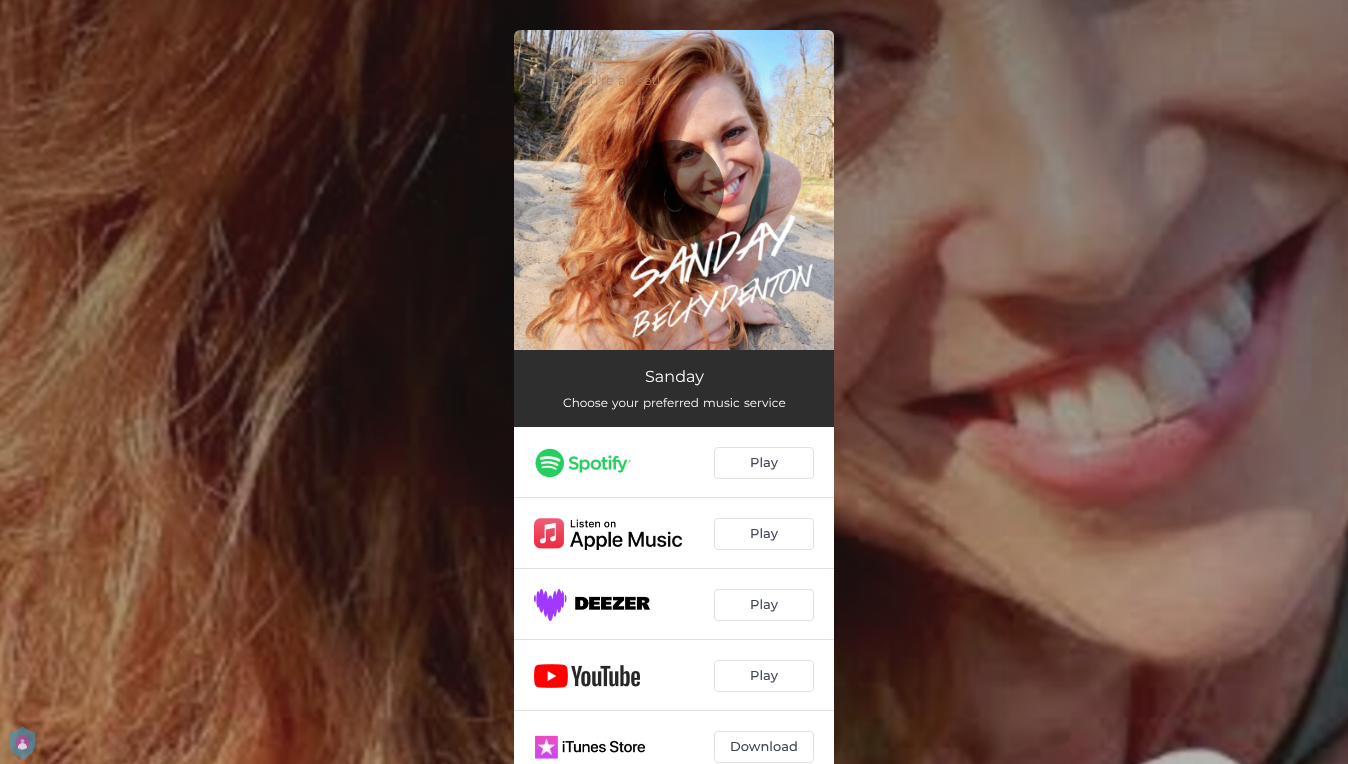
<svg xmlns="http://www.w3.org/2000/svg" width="1348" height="764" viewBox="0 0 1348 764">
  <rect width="100%" height="100%" fill="#ffffff"/>
  <image x="0" y="0" width="1348" height="764" href="img2.png"/>
  <image x="10" y="726" width="25" height="33" href="img1.png"/>
  <image x="514" y="30" width="320" height="320" href="img3.png"/>
  <circle cx="674" cy="190" r="50" fill="#000000" fill-opacity="0.45"/>
  <text x="574" y="85" word-spacing="1" font-family="Montserrat" font-size="13" fill="#b48060">You're all set!</text>
  <rect x="514" y="350" width="320" height="77" fill="#2e2e2e"/>
  <text x="645" y="382" font-family="Montserrat" font-size="16" fill="#ffffff">Sanday</text>
  <text x="563" y="407" word-spacing="1" font-family="Montserrat" font-size="12" fill="#ffffff">Choose your preferred music service</text>
  <rect x="514" y="427" width="320" height="337" fill="#ffffff"/>
  <rect x="514" y="497" width="320" height="1" fill="#e1e1e4"/>
  <image x="535" y="448" width="96" height="30" href="img4.png"/>
  <rect x="714.5" y="447.5" width="99" height="31" rx="3.5" fill="none" stroke="#e1e1e4"/>
  <text x="750" y="467" font-family="Montserrat" font-size="13" font-weight="500" fill="#414754">Play</text>
  <rect x="514" y="568" width="320" height="1" fill="#e1e1e4"/>
  <image x="534" y="518" width="148" height="32" href="img5.png"/>
  <rect x="714.5" y="518.5" width="99" height="31" rx="3.5" fill="none" stroke="#e1e1e4"/>
  <text x="750" y="538" font-family="Montserrat" font-size="13" font-weight="500" fill="#414754">Play</text>
  <rect x="514" y="639" width="320" height="1" fill="#e1e1e4"/>
  <image x="534" y="589" width="116" height="32" href="img6.png"/>
  <rect x="714.5" y="589.5" width="99" height="31" rx="3.5" fill="none" stroke="#e1e1e4"/>
  <text x="750" y="609" font-family="Montserrat" font-size="13" font-weight="500" fill="#414754">Play</text>
  <rect x="514" y="710" width="320" height="1" fill="#e1e1e4"/>
  <image x="534" y="664" width="106" height="24" href="img7.png"/>
  <rect x="714.5" y="660.5" width="99" height="31" rx="3.5" fill="none" stroke="#e1e1e4"/>
  <text x="750" y="680" font-family="Montserrat" font-size="13" font-weight="500" fill="#414754">Play</text>
  <image x="535" y="735" width="111" height="24" href="img8.png"/>
  <rect x="714.5" y="731.5" width="99" height="31" rx="3.5" fill="none" stroke="#e1e1e4"/>
  <text x="730" y="751" font-family="Montserrat" font-size="13" font-weight="500" fill="#414754">Download</text>
</svg>
